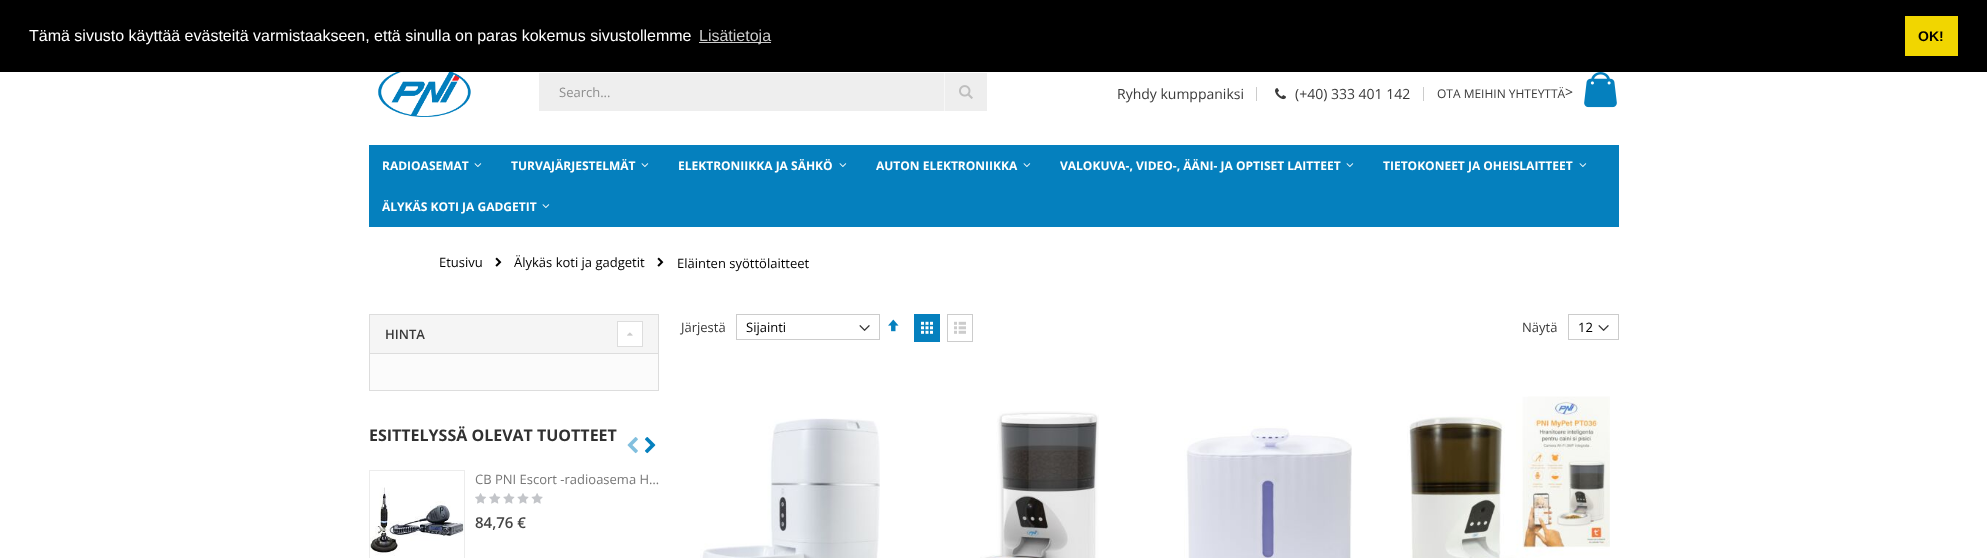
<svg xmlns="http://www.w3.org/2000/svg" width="1987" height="558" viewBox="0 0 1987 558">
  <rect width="100%" height="100%" fill="#ffffff"/>
  <rect x="0" y="0" width="1987" height="72" fill="#000000"/>
  <text x="29" y="41" font-family="Liberation Sans" font-size="16" fill="#ffffff">Tämä sivusto käyttää evästeitä varmistaakseen, että sinulla on paras kokemus sivustollemme</text>
  <rect x="699" y="42" width="72" height="1" fill="#cccccc"/>
  <text x="699" y="41" font-family="Liberation Sans" font-size="16" fill="#cccccc">Lisätietoja</text>
  <rect x="1905" y="16" width="53" height="40" fill="#f1d600"/>
  <text x="1918" y="41" font-family="Liberation Sans" font-size="14" font-weight="bold" fill="#000000">OK!</text>
  <image x="378" y="72" width="93" height="45" href="img1.png"/>
  <rect x="539" y="73" width="448" height="38" fill="#eeeeee"/>
  <rect x="944" y="73" width="1" height="38" fill="#f7f7f7"/>
  <text x="559" y="97" font-family="Open Sans" font-size="13" fill="#8d8d8d">Search...</text>
  <image x="959" y="85" width="14" height="14" href="img2.png"/>
  <text x="1117" y="99" font-family="Open Sans" font-size="14" fill="#3a3a3a">Ryhdy kumppaniksi</text>
  <rect x="1256" y="87" width="1" height="14" fill="#cccccc"/>
  <image x="1275" y="88" width="11" height="12" href="img3.png"/>
  <text x="1295" y="99" font-family="Open Sans" font-size="14" fill="#3a3a3a">(+40) 333 401 142</text>
  <rect x="1423" y="87" width="1" height="14" fill="#cccccc"/>
  <text x="1437" y="98" font-family="Open Sans" font-size="12" fill="#3a3a3a">OTA MEIHIN YHTEYTTÄ</text>
  <text x="1565" y="97" font-family="Open Sans" font-size="14" fill="#3a3a3a">&gt;</text>
  <image x="1584" y="72" width="33" height="36" href="img4.png"/>
  <rect x="369" y="145" width="1250" height="82" fill="#0580be"/>
  <text x="382" y="170" font-family="Open Sans" font-size="12" font-weight="bold" fill="#ffffff">RADIOASEMAT</text>
  <image x="474" y="163" width="8" height="4" href="img5.png"/>
  <text x="511" y="170" font-family="Open Sans" font-size="12" font-weight="bold" fill="#ffffff">TURVAJÄRJESTELMÄT</text>
  <image x="641" y="163" width="8" height="4" href="img5.png"/>
  <text x="678" y="170" font-family="Open Sans" font-size="12" font-weight="bold" fill="#ffffff">ELEKTRONIIKKA JA SÄHKÖ</text>
  <image x="839" y="163" width="8" height="4" href="img5.png"/>
  <text x="876" y="170" font-family="Open Sans" font-size="12" font-weight="bold" fill="#ffffff">AUTON ELEKTRONIIKKA</text>
  <image x="1023" y="163" width="8" height="4" href="img5.png"/>
  <text x="1060" y="170" font-family="Open Sans" font-size="12" font-weight="bold" fill="#ffffff">VALOKUVA-, VIDEO-, ÄÄNI- JA OPTISET LAITTEET</text>
  <image x="1346" y="163" width="8" height="4" href="img5.png"/>
  <text x="1383" y="170" font-family="Open Sans" font-size="12" font-weight="bold" fill="#ffffff">TIETOKONEET JA OHEISLAITTEET</text>
  <image x="1579" y="163" width="8" height="4" href="img5.png"/>
  <text x="382" y="211" font-family="Open Sans" font-size="12" font-weight="bold" fill="#ffffff">ÄLYKÄS KOTI JA GADGETIT</text>
  <image x="542" y="204" width="8" height="4" href="img5.png"/>
  <text x="439" y="267" font-family="Open Sans" font-size="13" fill="#000000">Etusivu</text>
  <image x="495" y="257" width="7" height="10" href="img6.png"/>
  <text x="514" y="267" font-family="Open Sans" font-size="13" fill="#000000">Älykäs koti ja gadgetit</text>
  <image x="657" y="257" width="7" height="10" href="img6.png"/>
  <text x="677" y="268" font-family="Open Sans" font-size="13" fill="#000000">Eläinten syöttölaitteet</text>
  <rect x="369.5" y="314.5" width="289" height="39" fill="#f5f5f5" stroke="#dddddd"/>
  <text x="385" y="339" font-family="Open Sans" font-size="13" font-weight="600" fill="#3a3a3a">HINTA</text>
  <rect x="617.5" y="321.5" width="25" height="25" fill="#ffffff" stroke="#dddddd"/>
  <image x="627" y="332" width="6" height="4" href="img7.png"/>
  <rect x="370" y="354" width="288" height="36" fill="#fbfbfb"/>
  <rect x="658" y="354" width="1" height="37" fill="#dddddd"/>
  <rect x="369" y="390" width="290" height="1" fill="#dddddd"/>
  <rect x="369" y="354" width="1" height="37" fill="#dddddd"/>
  <text x="369" y="441" font-family="Open Sans" font-size="16" font-weight="bold" fill="#313131">ESITTELYSSÄ OLEVAT TUOTTEET</text>
  <image x="627" y="437" width="11" height="17" href="img8.png"/>
  <image x="644" y="437" width="12" height="17" href="img9.png"/>
  <rect x="369.5" y="470.5" width="95" height="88" fill="none" stroke="#ececec"/>
  <image x="370" y="487" width="94" height="69" href="img10.png"/>
  <text x="475" y="484" font-family="Open Sans" font-size="13" fill="#777777">CB PNI Escort -radioasema H…</text>
  <image x="475" y="493" width="68" height="11" href="img11.png"/>
  <text x="475" y="528" font-family="Open Sans" font-size="15" font-weight="600" fill="#444444">84,76 €</text>
  <text x="681" y="332" font-family="Open Sans" font-size="13" fill="#3a3a3a">Järjestä</text>
  <image x="859" y="325" width="11" height="6" href="img12.png"/>
  <rect x="736.5" y="314.5" width="143" height="25" fill="none" stroke="#cccccc"/>
  <text x="746" y="332" font-family="Open Sans" font-size="13" fill="#000000">Sijainti</text>
  <image x="888" y="319" width="11" height="13" href="img13.png"/>
  <rect x="914" y="314" width="26" height="28" fill="#0580be"/>
  <image x="921" y="321" width="12" height="13" href="img14.png"/>
  <rect x="947.5" y="314.5" width="25" height="27" fill="none" stroke="#cccccc"/>
  <image x="954" y="321" width="12" height="13" href="img15.png"/>
  <text x="1522" y="332" font-family="Open Sans" font-size="13" fill="#3a3a3a">Näytä</text>
  <image x="1598" y="325" width="11" height="6" href="img12.png"/>
  <rect x="1568.5" y="314.5" width="50" height="25" fill="none" stroke="#cccccc"/>
  <text x="1578" y="332" font-family="Open Sans" font-size="13" fill="#000000">12</text>
  <image x="700" y="418" width="180" height="140" href="img16.png"/>
  <image x="980" y="411" width="119" height="147" href="img17.png"/>
  <image x="1184" y="426" width="168" height="132" href="img18.png"/>
  <image x="1407" y="396" width="203" height="162" href="img19.png"/>
</svg>
